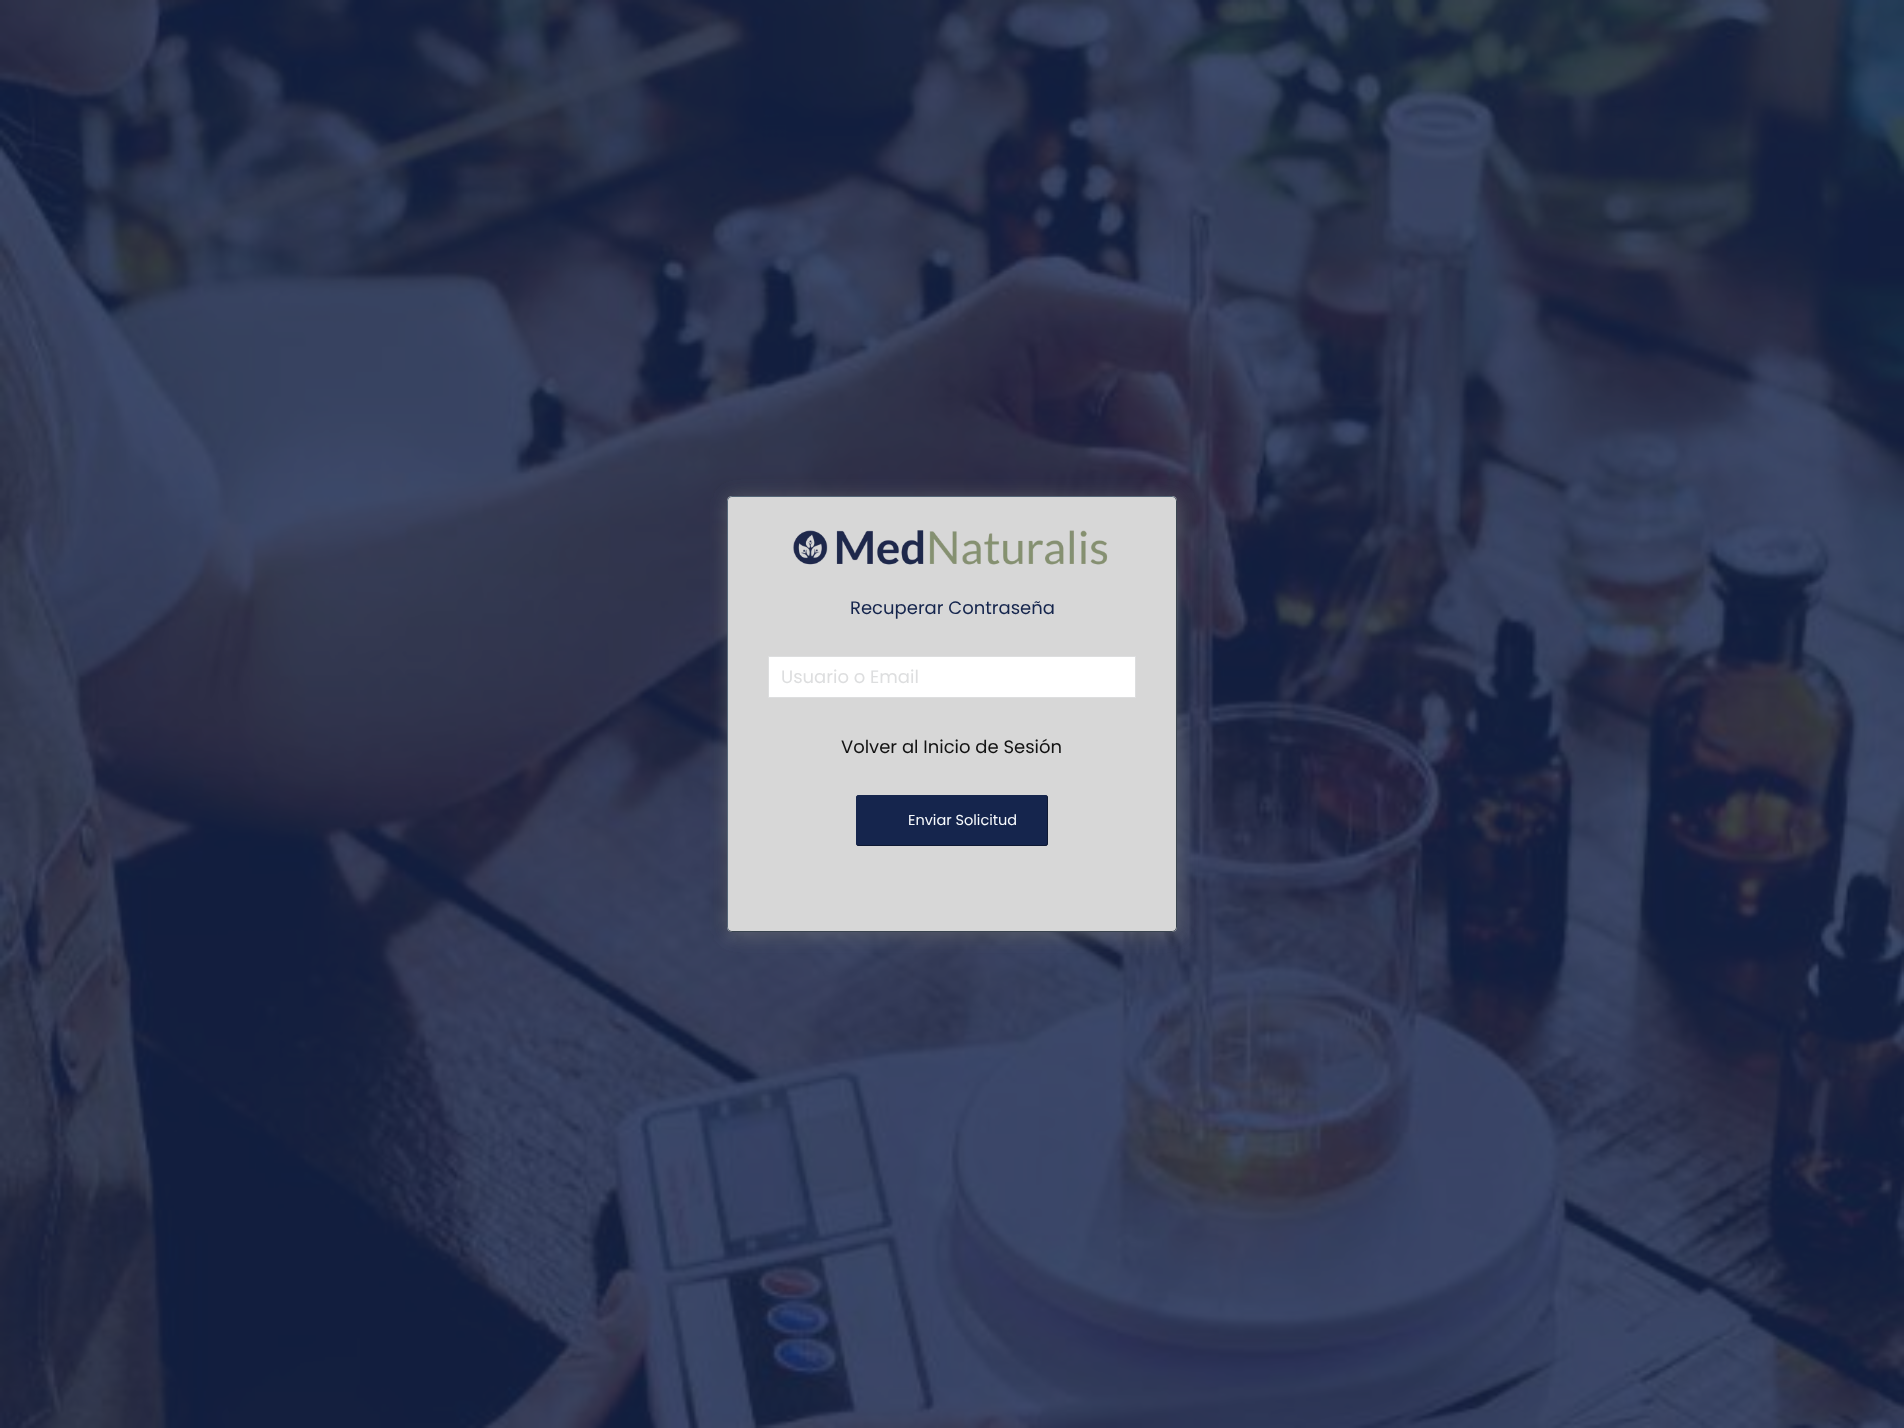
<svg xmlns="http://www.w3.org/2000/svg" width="1904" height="1428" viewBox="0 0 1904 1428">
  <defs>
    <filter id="blur1" x="-50%" y="-200%" width="200%" height="500%"><feGaussianBlur stdDeviation="9"/></filter>
  </defs>
  <rect width="100%" height="100%" fill="#ffffff"/>
  <image x="0" y="0" width="1904" height="1428" href="img1.png"/>
  <rect x="727" y="496" width="454" height="440" rx="7" fill="#737373" fill-opacity="0.51" filter="url(#blur1)"/>
  <rect x="727" y="496" width="450" height="436" rx="5" fill="#d7d7d7"/>
  <path d="M1175 498C1176 498.5 1176.5 500 1176.5 501V927C1176.5 928 1176 929.5 1175 930C1174.5 931 1173 931.5 1172 931.5H732C731 931.5 729.5 931 729 930" fill="none" stroke="#39444f"/>
  <path d="M729 930C728 929.5 727.5 928 727.5 927V501C727.5 500 728 498.5 729 498C729.5 497 731 496.5 732 496.5H1172C1173 496.5 1174.5 497 1175 498" fill="none" stroke="#556677"/>
  <image x="793" y="530" width="315" height="35" href="img2.png"/>
  <text x="850" y="614" font-family="Poppins" font-size="18" fill="#15254d">Recuperar Contraseña</text>
  <rect x="768.5" y="656.5" width="367" height="41" fill="#ffffff" stroke="#dddedf"/>
  <text x="781" y="683" font-family="Poppins" font-size="18" fill="#dddedf">Usuario o Email</text>
  <text x="841" y="753" font-family="Poppins" font-size="18" fill="#131313">Volver al Inicio de Sesión</text>
  <rect x="856" y="795" width="192" height="51" rx="3" fill="#15254d"/>
  <path d="M1047 796L1047.5 798V843L1047 845L1045 845.5H859L857 845" fill="none" stroke="#0e1933"/>
  <path d="M857 845L856.5 843V798L857 796L859 795.5H1045L1047 796" fill="none" stroke="#15254d"/>
  <text x="908" y="825" font-family="Poppins" font-size="14.5" fill="#f7fafd">Enviar Solicitud</text>
</svg>
